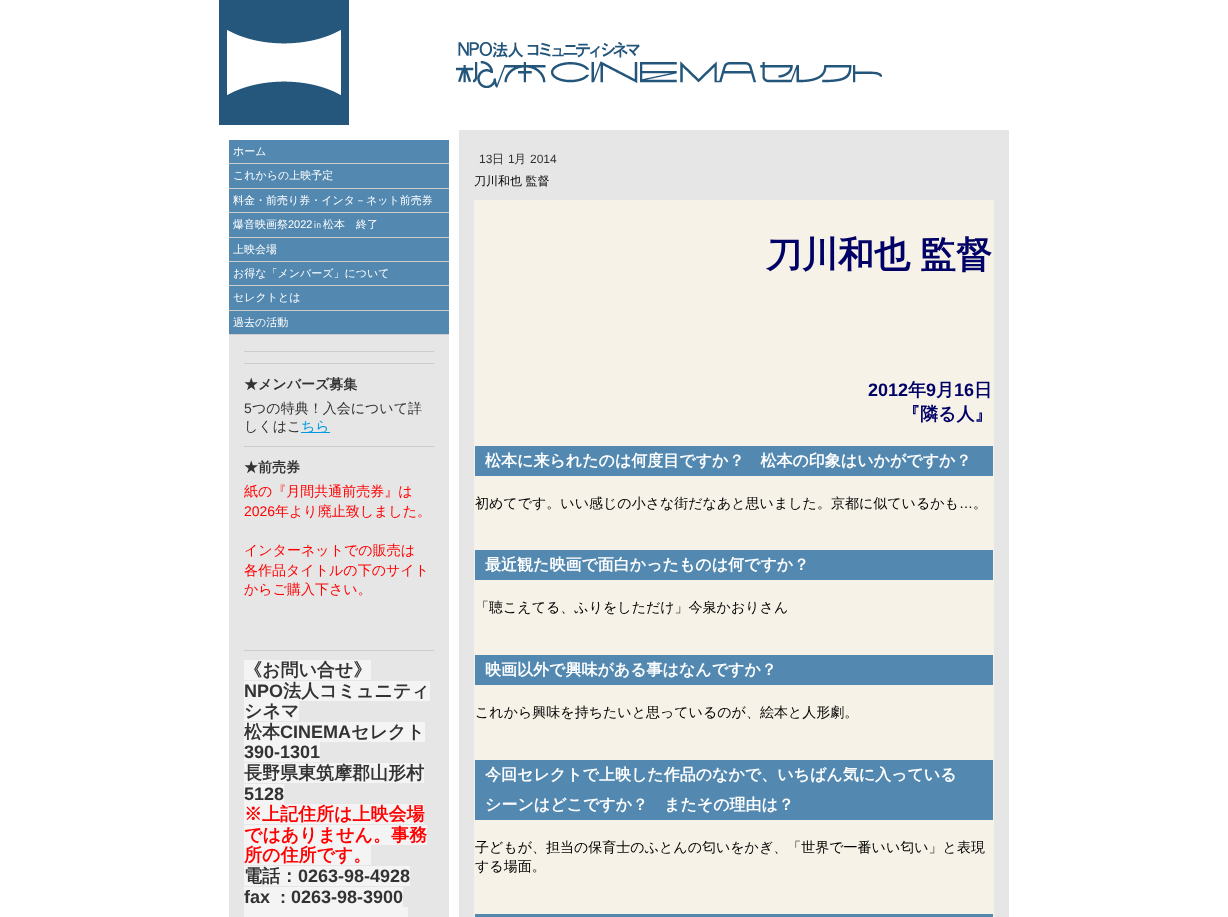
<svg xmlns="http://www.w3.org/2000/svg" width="1228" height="917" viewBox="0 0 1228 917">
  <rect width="100%" height="100%" fill="#ffffff"/>
  <image x="456" y="42" width="426" height="46" href="img1.png"/>
  <image x="219" y="0" width="130" height="125" href="img2.png"/>
  <rect x="229" y="140" width="220" height="194" fill="#5389b1"/>
  <rect x="229" y="163" width="220" height="1" fill="#cccccc"/>
  <text x="233" y="155" font-family="WenQuanYi Zen Hei" font-size="11" font-weight="500" fill="#ffffff">ホーム</text>
  <rect x="229" y="188" width="220" height="1" fill="#cccccc"/>
  <text x="233" y="179" font-family="WenQuanYi Zen Hei" font-size="11" font-weight="500" fill="#ffffff">これからの上映予定</text>
  <rect x="229" y="212" width="220" height="1" fill="#cccccc"/>
  <text x="233" y="204" font-family="WenQuanYi Zen Hei" font-size="11" font-weight="500" fill="#ffffff">料金・前売り券・インタ－ネット前売券</text>
  <rect x="229" y="237" width="220" height="1" fill="#cccccc"/>
  <text x="233" y="228" font-family="WenQuanYi Zen Hei" font-size="11" font-weight="500" fill="#ffffff">爆音映画祭</text>
  <text x="288" y="228" font-family="Liberation Sans" font-size="11" fill="#ffffff">2022</text>
  <text x="312" y="228" font-family="WenQuanYi Zen Hei" font-size="11" font-weight="500" fill="#ffffff">㏌松本　終了</text>
  <rect x="229" y="261" width="220" height="1" fill="#cccccc"/>
  <text x="233" y="253" font-family="WenQuanYi Zen Hei" font-size="11" font-weight="500" fill="#ffffff">上映会場</text>
  <rect x="229" y="285" width="220" height="1" fill="#cccccc"/>
  <text x="233" y="277" font-family="WenQuanYi Zen Hei" font-size="11" font-weight="500" fill="#ffffff">お得な「メンバーズ」について</text>
  <rect x="229" y="310" width="220" height="1" fill="#cccccc"/>
  <text x="233" y="301" font-family="WenQuanYi Zen Hei" font-size="11" font-weight="500" fill="#ffffff">セレクトとは</text>
  <rect x="229" y="334" width="220" height="1" fill="#cccccc"/>
  <text x="233" y="326" font-family="WenQuanYi Zen Hei" font-size="11" font-weight="500" fill="#ffffff">過去の活動</text>
  <rect x="229" y="335" width="220" height="582" fill="#e6e6e6"/>
  <rect x="244" y="351" width="190" height="1" fill="#cccccc"/>
  <rect x="244" y="363" width="190" height="1" fill="#cccccc"/>
  <text x="244" y="389" font-family="WenQuanYi Zen Hei" font-size="14" font-weight="bold" fill="#333333">★メンバーズ募集</text>
  <text x="244" y="413" font-family="Liberation Sans" font-size="14" fill="#333333">5</text>
  <text x="252" y="413" font-family="WenQuanYi Zen Hei" font-size="14" font-weight="500" fill="#333333">つの特典！入会について詳</text>
  <text x="244" y="431" font-family="WenQuanYi Zen Hei" font-size="14" font-weight="500" fill="#333333">しくはこ</text>
  <rect x="301" y="432" width="29" height="1" fill="#0099e1"/>
  <text x="301" y="431" font-family="WenQuanYi Zen Hei" font-size="14" font-weight="500" fill="#0099e1">ちら</text>
  <rect x="244" y="446" width="190" height="1" fill="#cccccc"/>
  <text x="244" y="472" font-family="WenQuanYi Zen Hei" font-size="14" font-weight="bold" fill="#333333">★前売券</text>
  <text x="244" y="496" font-family="WenQuanYi Zen Hei" font-size="14" font-weight="500" fill="#ff0000">紙の『月間共通前売券』は</text>
  <text x="244" y="516" font-family="Liberation Sans" font-size="14" fill="#ff0000">2026</text>
  <text x="275" y="516" font-family="WenQuanYi Zen Hei" font-size="14" font-weight="500" fill="#ff0000">年より廃止致しました。</text>
  <text x="244" y="555" font-family="WenQuanYi Zen Hei" font-size="14" font-weight="500" fill="#ff0000">インターネットでの販売は</text>
  <text x="244" y="575" font-family="WenQuanYi Zen Hei" font-size="14" font-weight="500" fill="#ff0000">各作品タイトルの下のサイト</text>
  <text x="244" y="594" font-family="WenQuanYi Zen Hei" font-size="14" font-weight="500" fill="#ff0000">からご購入下さい。</text>
  <rect x="244" y="650" width="190" height="1" fill="#cccccc"/>
  <rect x="244" y="660" width="127" height="20" fill="#f4f4f4"/>
  <text x="244" y="676" font-family="WenQuanYi Zen Hei" font-size="18" font-weight="bold" fill="#333333">《お問い合せ》</text>
  <rect x="244" y="681" width="186" height="20" fill="#f4f4f4"/>
  <text x="244" y="697" font-family="Liberation Sans" font-size="18" font-weight="bold" fill="#333333">NPO</text>
  <text x="283" y="697" font-family="WenQuanYi Zen Hei" font-size="18" font-weight="bold" fill="#333333">法人コミュニティ</text>
  <rect x="244" y="701" width="55" height="20" fill="#f4f4f4"/>
  <text x="244" y="717" font-family="WenQuanYi Zen Hei" font-size="18" font-weight="bold" fill="#333333">シネマ</text>
  <rect x="244" y="722" width="181" height="20" fill="#f4f4f4"/>
  <text x="244" y="738" font-family="WenQuanYi Zen Hei" font-size="18" font-weight="bold" fill="#333333">松本</text>
  <text x="280" y="738" font-family="Liberation Sans" font-size="18" font-weight="bold" fill="#333333">CINEMA</text>
  <text x="351" y="738" font-family="WenQuanYi Zen Hei" font-size="18" font-weight="bold" fill="#333333">セレクト</text>
  <rect x="244" y="742" width="76" height="20" fill="#f4f4f4"/>
  <text x="244" y="758" font-family="Liberation Sans" font-size="18" font-weight="bold" fill="#333333">390-1301</text>
  <rect x="244" y="763" width="180" height="20" fill="#f4f4f4"/>
  <text x="244" y="779" font-family="WenQuanYi Zen Hei" font-size="18" font-weight="bold" fill="#333333">長野県東筑摩郡山形村</text>
  <rect x="244" y="784" width="40" height="20" fill="#f4f4f4"/>
  <text x="244" y="800" font-family="Liberation Sans" font-size="18" font-weight="bold" fill="#333333">5128</text>
  <rect x="244" y="804" width="180" height="20" fill="#f4f4f4"/>
  <text x="244" y="820" font-family="WenQuanYi Zen Hei" font-size="18" font-weight="bold" fill="#ff0000">※上記住所は上映会場</text>
  <rect x="244" y="825" width="183" height="20" fill="#f4f4f4"/>
  <text x="244" y="841" font-family="WenQuanYi Zen Hei" font-size="18" font-weight="bold" fill="#ff0000">ではありません。事務</text>
  <rect x="244" y="845" width="127" height="20" fill="#f4f4f4"/>
  <text x="244" y="861" font-family="WenQuanYi Zen Hei" font-size="18" font-weight="bold" fill="#ff0000">所の住所です。</text>
  <rect x="244" y="866" width="166" height="20" fill="#f4f4f4"/>
  <text x="244" y="882" font-family="WenQuanYi Zen Hei" font-size="18" font-weight="bold" fill="#333333">電話：</text>
  <text x="298" y="882" font-family="Liberation Sans" font-size="18" font-weight="bold" fill="#333333">0263-98-4928</text>
  <rect x="244" y="887" width="159" height="20" fill="#f4f4f4"/>
  <text x="244" y="903" font-family="Liberation Sans" font-size="18" font-weight="bold" fill="#333333" xml:space="preserve">fax  : 0263-98-3900</text>
  <rect x="244" y="907" width="164" height="10" fill="#f4f4f4"/>
  <rect x="459" y="130" width="550" height="787" fill="#e6e6e6"/>
  <text x="479" y="163" font-family="Liberation Sans" font-size="12" fill="#333333">13</text>
  <text x="492" y="163" font-family="WenQuanYi Zen Hei" font-size="12" font-weight="500" fill="#333333">日</text>
  <text x="508" y="163" font-family="Liberation Sans" font-size="12" fill="#333333">1</text>
  <text x="514" y="163" font-family="WenQuanYi Zen Hei" font-size="12" font-weight="500" fill="#333333">月</text>
  <text x="530" y="163" font-family="Liberation Sans" font-size="12" fill="#333333">2014</text>
  <text x="474" y="185" font-family="WenQuanYi Zen Hei" font-size="12" font-weight="500" fill="#000000">刀川和也 監督</text>
  <rect x="474" y="200" width="520" height="717" fill="#f6f2e7"/>
  <text x="766" y="267" word-spacing="-1" font-family="WenQuanYi Zen Hei" font-size="36" font-weight="bold" fill="#000066">刀川和也 監督</text>
  <text x="868" y="396" font-family="Liberation Sans" font-size="18" font-weight="bold" fill="#000066">2012</text>
  <text x="908" y="396" font-family="WenQuanYi Zen Hei" font-size="18" font-weight="bold" fill="#000066">年</text>
  <text x="926" y="396" font-family="Liberation Sans" font-size="18" font-weight="bold" fill="#000066">9</text>
  <text x="936" y="396" font-family="WenQuanYi Zen Hei" font-size="18" font-weight="bold" fill="#000066">月</text>
  <text x="954" y="396" font-family="Liberation Sans" font-size="18" font-weight="bold" fill="#000066">16</text>
  <text x="974" y="396" font-family="WenQuanYi Zen Hei" font-size="18" font-weight="bold" fill="#000066">日</text>
  <text x="902" y="420" font-family="WenQuanYi Zen Hei" font-size="18" font-weight="bold" fill="#000066">『隣る人』</text>
  <rect x="475" y="446" width="518" height="30" fill="#5389b1"/>
  <text x="485" y="466" font-family="WenQuanYi Zen Hei" font-size="16" font-weight="bold" fill="#ffffff">松本に来られたのは何度目ですか？　松本の印象はいかがですか？</text>
  <text x="475" y="508" font-family="WenQuanYi Zen Hei" font-size="14" font-weight="500" fill="#000000">初めてです。いい感じの小さな街だなあと思いました。京都に似ているかも</text>
  <text x="959" y="508" font-family="Liberation Sans" font-size="14" fill="#000000">…</text>
  <text x="973" y="508" font-family="WenQuanYi Zen Hei" font-size="14" font-weight="500" fill="#000000">。</text>
  <rect x="475" y="550" width="518" height="30" fill="#5389b1"/>
  <text x="485" y="570" font-family="WenQuanYi Zen Hei" font-size="16" font-weight="bold" fill="#ffffff">最近観た映画で面白かったものは何ですか？</text>
  <text x="475" y="612" font-family="WenQuanYi Zen Hei" font-size="14" font-weight="500" fill="#000000">「聴こえてる、ふりをしただけ」今泉かおりさん</text>
  <rect x="475" y="655" width="518" height="30" fill="#5389b1"/>
  <text x="485" y="675" font-family="WenQuanYi Zen Hei" font-size="16" font-weight="bold" fill="#ffffff">映画以外で興味がある事はなんですか？</text>
  <text x="475" y="717" font-family="WenQuanYi Zen Hei" font-size="14" font-weight="500" fill="#000000">これから興味を持ちたいと思っているのが、絵本と人形劇。</text>
  <rect x="475" y="760" width="518" height="60" fill="#5389b1"/>
  <text x="485" y="780" font-family="WenQuanYi Zen Hei" font-size="16" font-weight="bold" fill="#ffffff">今回セレクトで上映した作品のなかで、いちばん気に入っている</text>
  <text x="485" y="810" font-family="WenQuanYi Zen Hei" font-size="16" font-weight="bold" fill="#ffffff">シーンはどこですか？　またその理由は？</text>
  <text x="475" y="852" font-family="WenQuanYi Zen Hei" font-size="14" font-weight="500" fill="#000000">子どもが、担当の保育士のふとんの匂いをかぎ、「世界で一番いい匂い」と表現</text>
  <text x="475" y="871" font-family="WenQuanYi Zen Hei" font-size="14" font-weight="500" fill="#000000">する場面。</text>
  <rect x="475" y="914" width="518" height="3" fill="#5389b1"/>
</svg>
